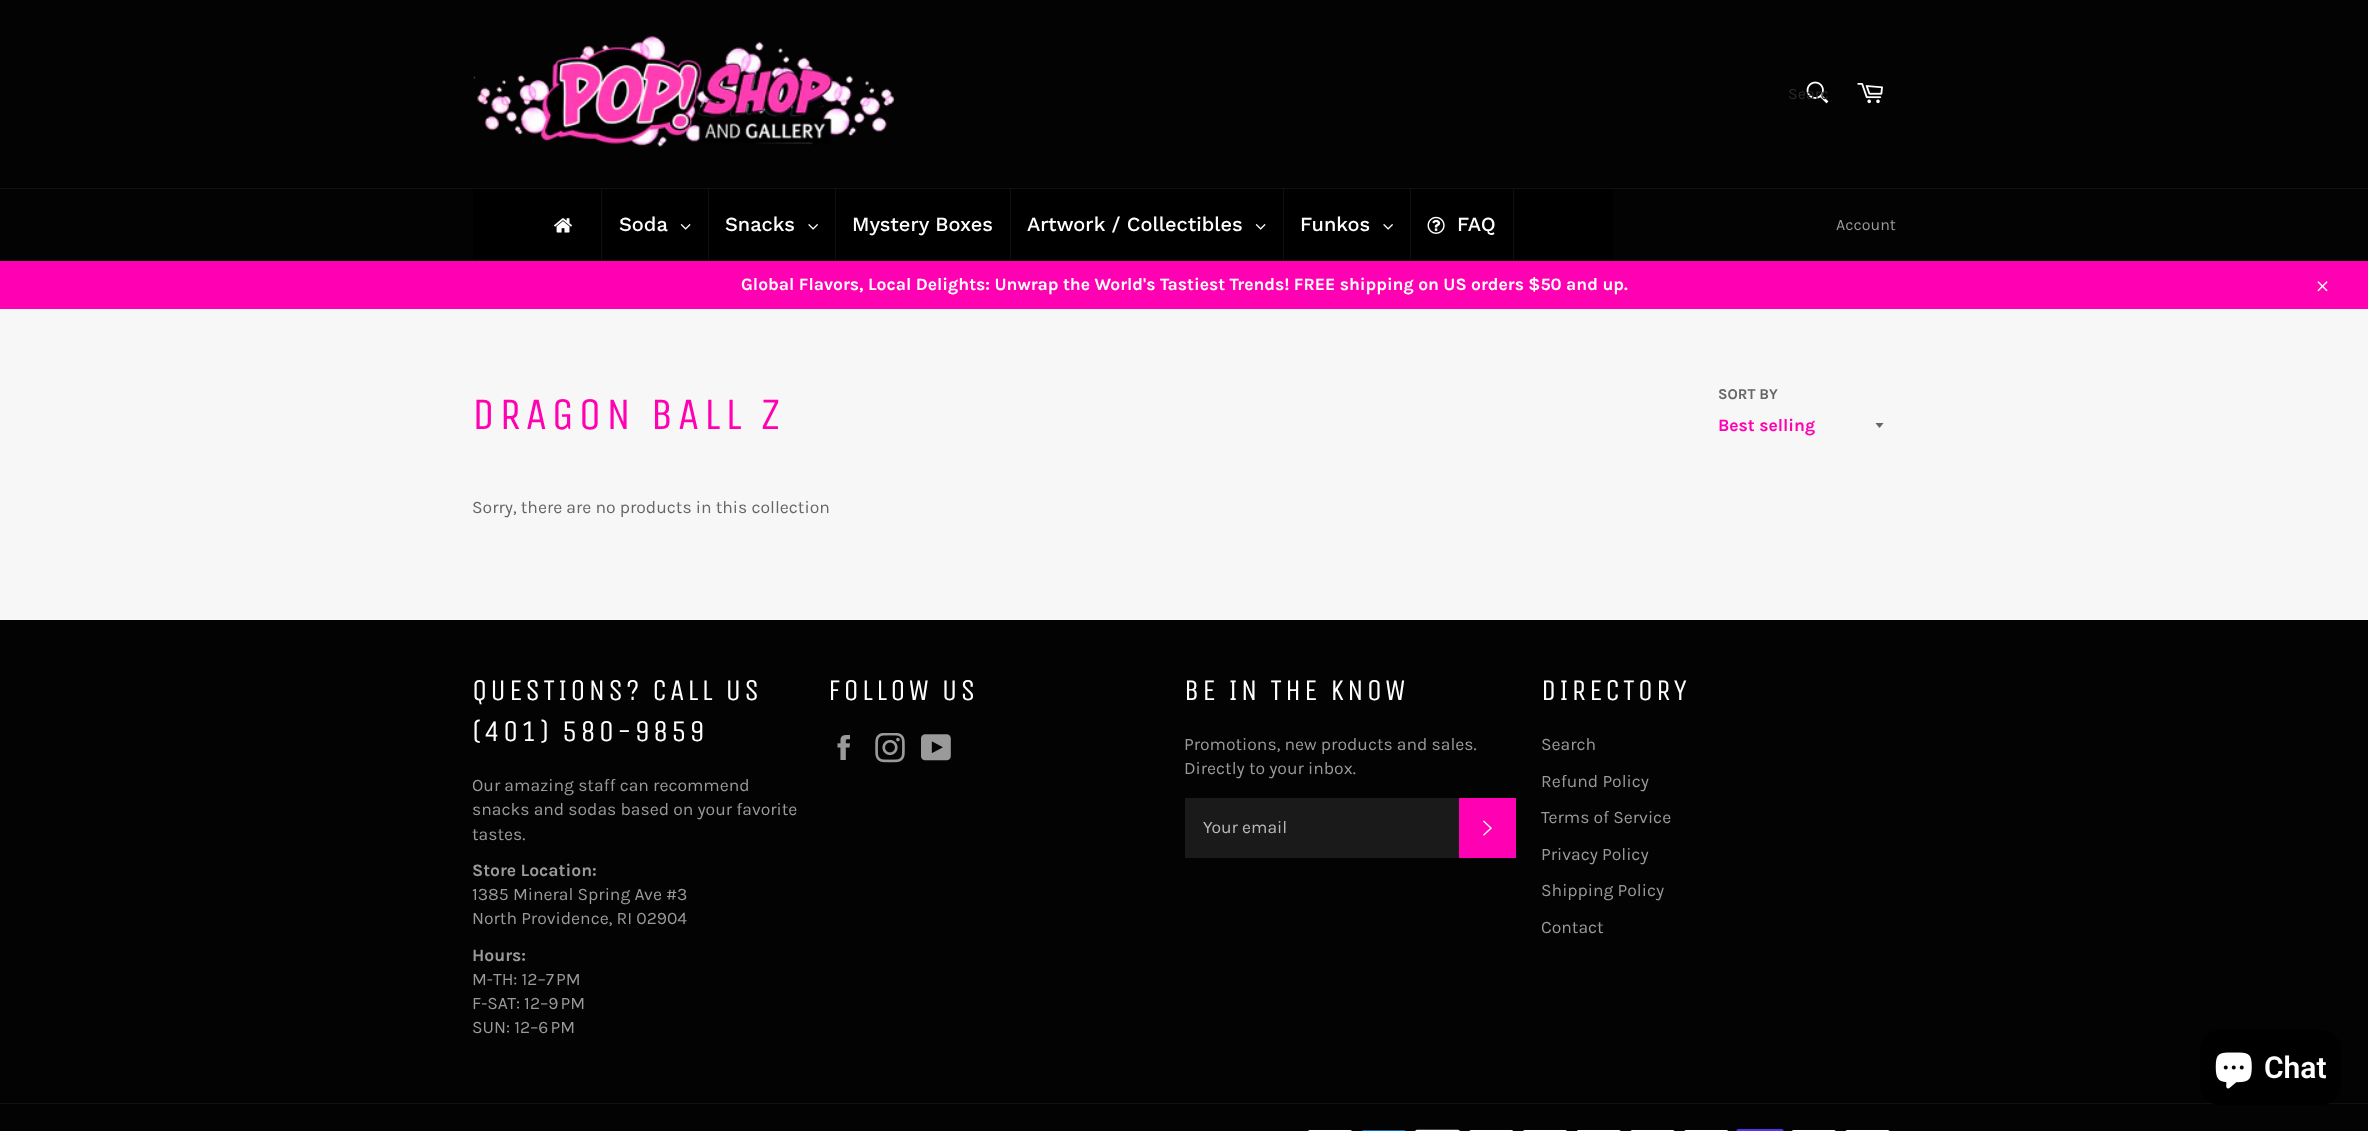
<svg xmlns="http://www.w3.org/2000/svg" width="2368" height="1131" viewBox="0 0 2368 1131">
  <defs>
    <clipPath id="clip1"><rect x="1788" y="85" width="40" height="19"/></clipPath>
    <clipPath id="clip2"><rect x="1875" y="423" width="10" height="6"/></clipPath>
  </defs>
  <rect width="100%" height="100%" fill="#f7f7f7"/>
  <rect x="0" y="0" width="2368" height="188" fill="#030303"/>
  <image x="473" y="36" width="422" height="111" href="img1.png"/>
  <image x="1806" y="81" width="23" height="23" href="img2.png"/>
  <g clip-path="url(#clip1)">
    <text x="1788" y="99" font-family="Karla" font-size="16" fill="#2a2a2a">Searc</text>
  </g>
  <image x="1857" y="83" width="26" height="21" href="img3.png"/>
  <rect x="0" y="189" width="2368" height="72" fill="#030303"/>
  <rect x="0" y="188" width="2368" height="1" fill="#101010"/>
  <rect x="473" y="189" width="1140" height="71" fill="#000000"/>
  <image x="554" y="218" width="18" height="15" href="img4.png"/>
  <rect x="601" y="189" width="1" height="71" fill="#0f0f0f"/>
  <text x="619" y="231" font-family="Work Sans" font-size="20" font-weight="500" fill="#ffffff">Soda</text>
  <image x="680" y="224" width="11" height="6" href="img5.png"/>
  <rect x="708" y="189" width="1" height="71" fill="#0f0f0f"/>
  <text x="725" y="231" font-family="Work Sans" font-size="20" font-weight="500" fill="#ffffff">Snacks</text>
  <image x="808" y="224" width="10" height="6" href="img6.png"/>
  <rect x="835" y="189" width="1" height="71" fill="#0f0f0f"/>
  <text x="852" y="231" font-family="Work Sans" font-size="20" font-weight="500" fill="#ffffff">Mystery Boxes</text>
  <rect x="1010" y="189" width="1" height="71" fill="#0f0f0f"/>
  <text x="1027" y="231" font-family="Work Sans" font-size="20" font-weight="500" fill="#ffffff">Artwork / Collectibles</text>
  <image x="1255" y="224" width="11" height="6" href="img5.png"/>
  <rect x="1283" y="189" width="1" height="71" fill="#0f0f0f"/>
  <text x="1300" y="231" font-family="Work Sans" font-size="20" font-weight="500" fill="#ffffff">Funkos</text>
  <image x="1383" y="224" width="10" height="6" href="img6.png"/>
  <rect x="1410" y="189" width="1" height="71" fill="#0f0f0f"/>
  <image x="1427" y="216" width="18" height="18" href="img7.png"/>
  <text x="1457" y="231" font-family="Work Sans" font-size="20" font-weight="500" fill="#ffffff">FAQ</text>
  <rect x="1513" y="189" width="1" height="71" fill="#0f0f0f"/>
  <text x="1836" y="230" font-family="Karla" font-size="16" fill="#9a9a9a">Account</text>
  <rect x="0" y="261" width="2368" height="48" fill="#ff00b2"/>
  <text x="741" y="290" font-family="Karla" font-size="17.5" font-weight="bold" fill="#ffffff">Global Flavors, Local Delights: Unwrap the World's Tastiest Trends! FREE shipping on US orders $50 and up.</text>
  <image x="2317" y="281" width="11" height="11" href="img8.png"/>
  <text x="472" y="429" font-family="Unica One" font-size="45" letter-spacing="4.5" fill="#ff00b2">DRAGON BALL Z</text>
  <text x="1718" y="399" font-family="Karla" font-size="15" font-weight="bold" fill="#666666">SORT BY</text>
  <g clip-path="url(#clip2)">
    <path d="M1875 422.5L1879.5 428L1884 422.5Z" fill="#666666"/>
  </g>
  <text x="1718" y="431" font-family="Karla" font-size="17.5" font-weight="bold" fill="#ff00b2">Best selling</text>
  <text x="472" y="513" font-family="Karla" font-size="17.5" fill="#666666">Sorry, there are no products in this collection</text>
  <rect x="0" y="620" width="2368" height="511" fill="#030303"/>
  <text x="472" y="700" font-family="Unica One" font-size="30" letter-spacing="3" fill="#ffffff">QUESTIONS? CALL US</text>
  <text x="472" y="741" font-family="Unica One" font-size="30" letter-spacing="3" fill="#ffffff">(401) 580-9859</text>
  <text x="472" y="791" font-family="Karla" font-size="17.5" fill="#9a9a9a">Our amazing staff can recommend</text>
  <text x="472" y="815" font-family="Karla" font-size="17.5" fill="#9a9a9a">snacks and sodas based on your favorite</text>
  <text x="472" y="840" font-family="Karla" font-size="17.5" fill="#9a9a9a">tastes.</text>
  <text x="472" y="876" font-family="Karla" font-size="17.5" font-weight="bold" fill="#9a9a9a">Store Location:</text>
  <text x="472" y="900" font-family="Karla" font-size="17.5" fill="#9a9a9a">1385 Mineral Spring Ave #3</text>
  <text x="472" y="924" font-family="Karla" font-size="17.5" fill="#9a9a9a">North Providence, RI 02904</text>
  <text x="472" y="961" font-family="Karla" font-size="17.5" font-weight="bold" fill="#9a9a9a">Hours:</text>
  <text x="472" y="985" font-family="Karla" font-size="17.5" fill="#9a9a9a">M-TH: 12–7 PM</text>
  <text x="472" y="1009" font-family="Karla" font-size="17.5" fill="#9a9a9a">F-SAT: 12–9 PM</text>
  <text x="472" y="1033" font-family="Karla" font-size="17.5" fill="#9a9a9a">SUN: 12–6 PM</text>
  <text x="828" y="700" font-family="Unica One" font-size="30" letter-spacing="3" fill="#ffffff">FOLLOW US</text>
  <image x="837" y="735" width="13" height="25" href="img9.png"/>
  <image x="875" y="733" width="30" height="30" href="img10.png"/>
  <image x="921" y="734" width="30" height="27" href="img11.png"/>
  <text x="1184" y="700" font-family="Unica One" font-size="30" letter-spacing="3" fill="#ffffff">BE IN THE KNOW</text>
  <text x="1184" y="750" font-family="Karla" font-size="17.5" fill="#9a9a9a">Promotions, new products and sales.</text>
  <text x="1184" y="774" font-family="Karla" font-size="17.5" fill="#9a9a9a">Directly to your inbox.</text>
  <rect x="1185" y="798" width="274" height="60" fill="#1a1a1a"/>
  <text x="1203" y="833" font-family="Karla" font-size="17.5" fill="#bababa">Your email</text>
  <rect x="1459" y="798" width="57" height="60" fill="#ff00b2"/>
  <image x="1483" y="820" width="9" height="16" href="img12.png"/>
  <text x="1541" y="700" font-family="Unica One" font-size="30" letter-spacing="3" fill="#ffffff">DIRECTORY</text>
  <text x="1541" y="750" font-family="Karla" font-size="17.5" fill="#9a9a9a">Search</text>
  <text x="1541" y="787" font-family="Karla" font-size="17.5" fill="#9a9a9a">Refund Policy</text>
  <text x="1541" y="823" font-family="Karla" font-size="17.5" fill="#9a9a9a">Terms of Service</text>
  <text x="1541" y="860" font-family="Karla" font-size="17.5" fill="#9a9a9a">Privacy Policy</text>
  <text x="1541" y="896" font-family="Karla" font-size="17.5" fill="#9a9a9a">Shipping Policy</text>
  <text x="1541" y="933" font-family="Karla" font-size="17.5" fill="#9a9a9a">Contact</text>
  <rect x="0" y="1103" width="2368" height="1" fill="#101010"/>
  <image x="1308" y="1130" width="44" height="1" href="img13.png"/>
  <image x="1361" y="1130" width="45" height="1" href="img14.png"/>
  <image x="1415" y="1129" width="45" height="2" href="img15.png"/>
  <image x="1469" y="1130" width="45" height="1" href="img16.png"/>
  <image x="1523" y="1130" width="44" height="1" href="img13.png"/>
  <image x="1576" y="1130" width="45" height="1" href="img17.png"/>
  <image x="1630" y="1130" width="45" height="1" href="img18.png"/>
  <image x="1684" y="1130" width="45" height="1" href="img16.png"/>
  <image x="1736" y="1129" width="48" height="2" href="img19.png"/>
  <image x="1791" y="1130" width="45" height="1" href="img17.png"/>
  <image x="1845" y="1130" width="45" height="1" href="img18.png"/>
  <rect x="2200" y="1030" width="141" height="75" rx="20" fill="#000000"/>
  <image x="2215" y="1052" width="37" height="37" href="img20.png"/>
  <text x="2264" y="1078" font-family="Roboto" font-size="30" font-weight="600" fill="#ffffff">Chat</text>
</svg>
